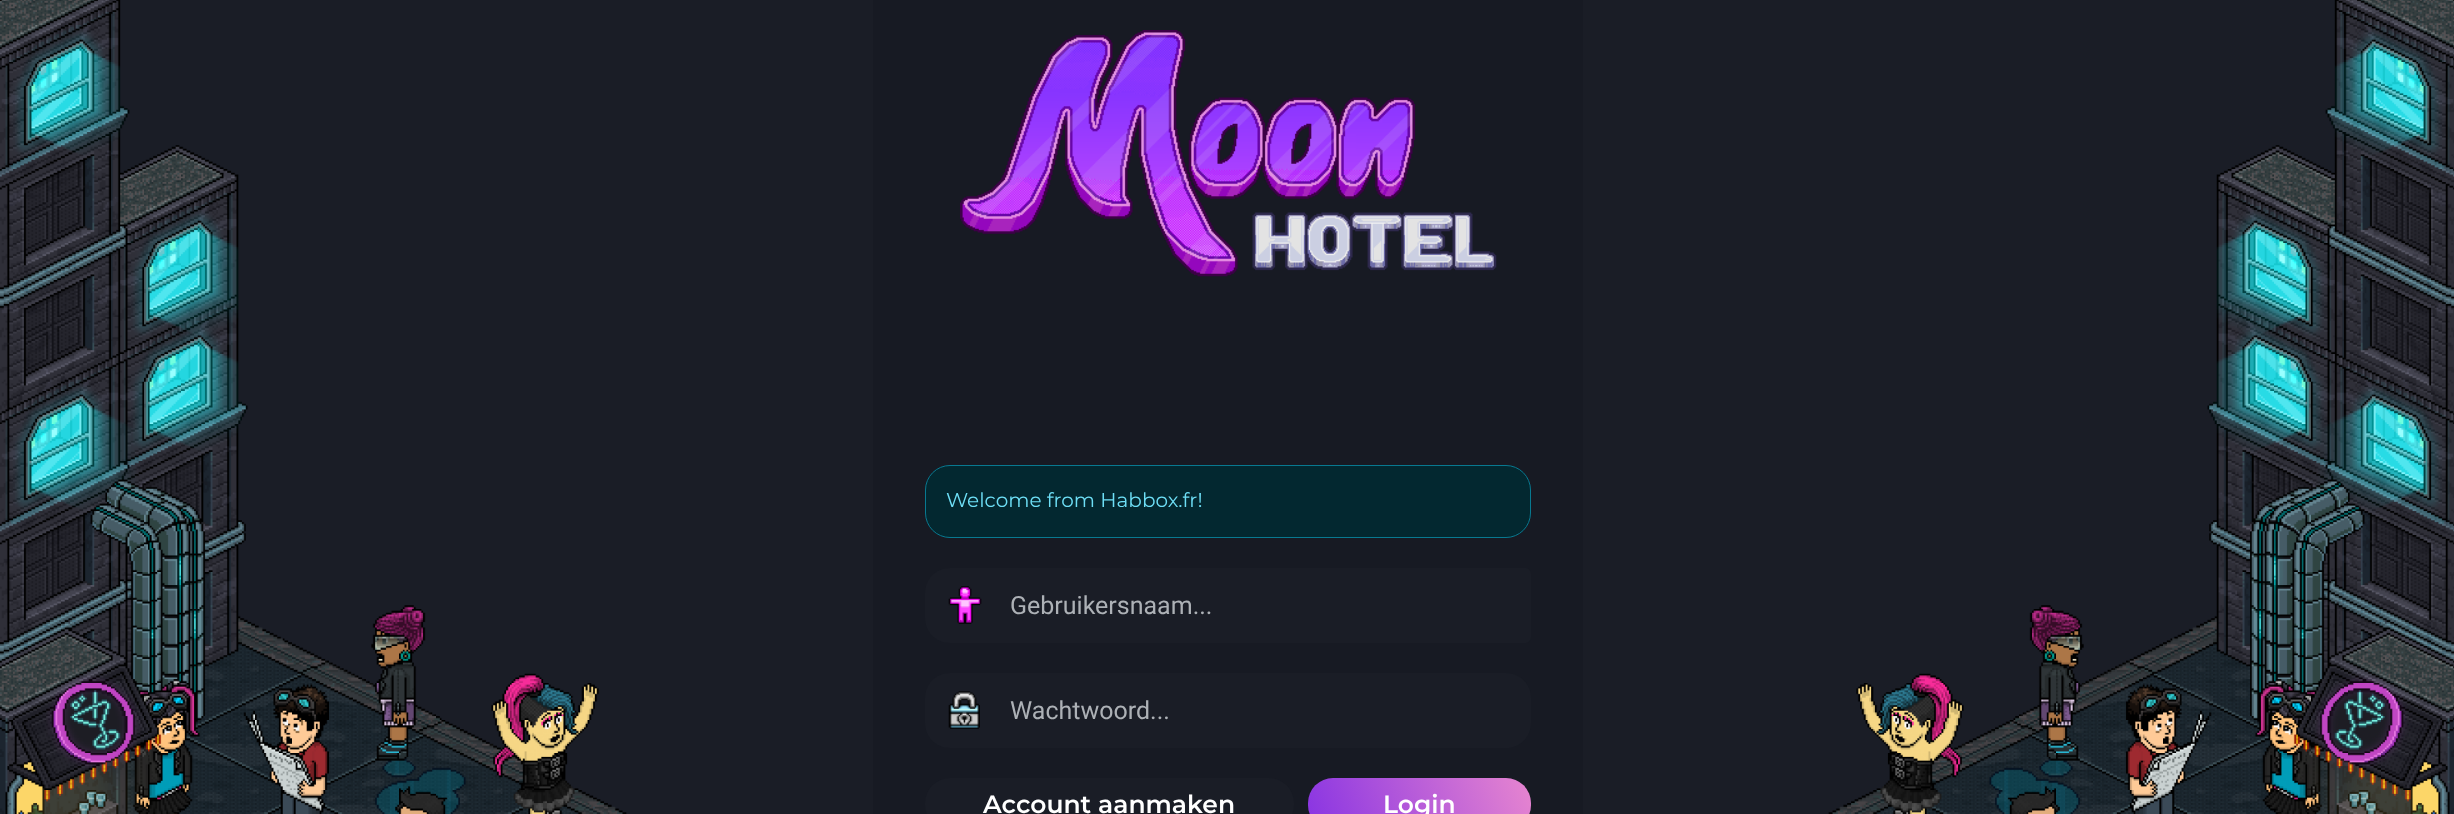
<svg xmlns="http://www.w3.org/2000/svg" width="2454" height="814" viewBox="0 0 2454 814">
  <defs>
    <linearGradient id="g1" gradientUnits="userSpaceOnUse" x1="1532" y1="760" x2="1287" y2="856"><stop offset="0" stop-color="#ea88cf"/><stop offset="1" stop-color="#7c29e5"/></linearGradient>
  </defs>
  <rect width="100%" height="100%" fill="#1a1d26"/>
  <image x="0" y="0" width="627" height="814" href="img1.png"/>
  <rect x="873" y="0" width="710" height="814" fill="#171a23"/>
  <image x="960" y="30" width="537" height="247" href="img2.png"/>
  <rect x="925.5" y="465.5" width="605" height="72" rx="24.5" fill="#032830" stroke="#087990"/>
  <text x="946" y="507" font-family="Montserrat" font-size="20" fill="#6edff6">Welcome from Habbox.fr!</text>
  <path d="M950 568H996V643H950C936 643 925 632 925 618V593C925 579 936 568 950 568Z" fill="#1a1d26"/>
  <image x="948" y="586" width="34" height="38" href="img3.png"/>
  <rect x="996" y="568" width="529" height="75" fill="#1a1d26"/>
  <text x="1010" y="614" font-family="Roboto" font-size="25" fill="#adb1b6">Gebruikersnaam...</text>
  <path d="M1525 568C1528.5 568 1531 570.5 1531 574V637C1531 640.5 1528.5 643 1525 643Z" fill="#1a1d26"/>
  <path d="M950 673H996V748H950C936 748 925 737 925 723V698C925 684 936 673 950 673Z" fill="#1a1d26"/>
  <image x="948" y="691" width="32" height="38" href="img4.png"/>
  <path d="M995 673H1506C1520 673 1531 684 1531 698V723C1531 737 1520 748 1506 748H995Z" fill="#1a1d26"/>
  <text x="1010" y="719" font-family="Roboto" font-size="25" fill="#adb1b6">Wachtwoord...</text>
  <rect x="925" y="778" width="369" height="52" rx="25" fill="#1a1d26"/>
  <text x="983" y="813" font-family="Montserrat" font-size="25" font-weight="600" fill="#ffffff">Account aanmaken</text>
  <rect x="1308" y="778" width="223" height="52" rx="25" fill="url(#g1)"/>
  <text x="1383" y="813" font-family="Montserrat" font-size="25" font-weight="600" fill="#ffffff">Login</text>
  <image x="1828" y="0" width="626" height="814" href="img5.png"/>
</svg>
